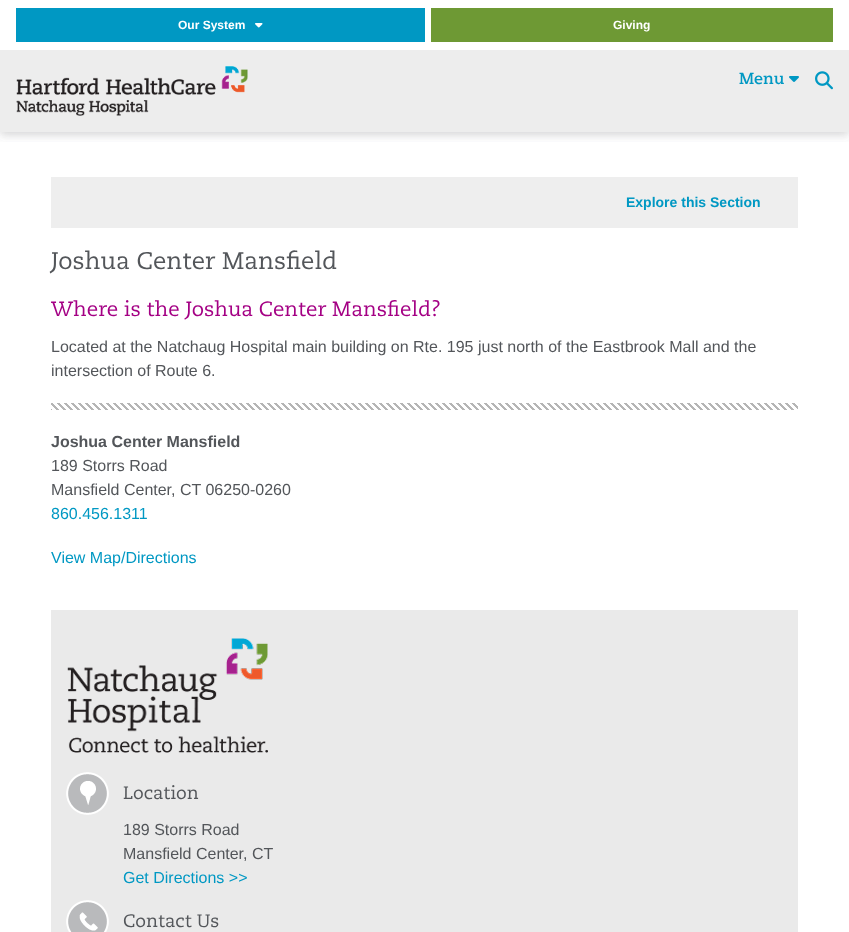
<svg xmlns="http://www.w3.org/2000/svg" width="849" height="932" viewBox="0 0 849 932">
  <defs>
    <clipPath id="clip1"><rect x="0" y="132" width="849" height="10"/></clipPath>
    <filter id="blur1" x="-50%" y="-200%" width="200%" height="500%"><feGaussianBlur stdDeviation="5"/></filter>
  </defs>
  <rect width="100%" height="100%" fill="#ffffff"/>
  <g clip-path="url(#clip1)">
    <rect x="0" y="3" width="849" height="132" fill="#53565a" fill-opacity="0.25" filter="url(#blur1)"/>
  </g>
  <rect x="16" y="8" width="409" height="34" fill="#0098c3"/>
  <text x="178" y="29" font-family="Liberation Sans" font-size="12" font-weight="bold" fill="#ffffff">Our System</text>
  <image x="255" y="23" width="8" height="5" href="img1.png"/>
  <rect x="431" y="8" width="402" height="34" fill="#6e9934"/>
  <text x="613" y="29" font-family="Liberation Sans" font-size="12" font-weight="bold" fill="#ffffff">Giving</text>
  <rect x="0" y="50" width="849" height="82" fill="#ededed"/>
  <image x="16" y="66" width="232" height="50" href="img2.png"/>
  <text x="739" y="84" font-family="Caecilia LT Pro" font-size="16" font-weight="bold" fill="#0098c3">Menu</text>
  <image x="789" y="76" width="10" height="6" href="img3.png"/>
  <image x="815" y="71" width="18" height="19" href="img4.png"/>
  <rect x="51" y="177" width="747" height="51" fill="#eeeeee"/>
  <text x="626" y="207" font-family="Liberation Sans" font-size="14" font-weight="bold" fill="#0098c3">Explore this Section</text>
  <text x="51" y="269" font-family="Caecilia LT Pro" font-size="24" fill="#53565a">Joshua Center Mansfield</text>
  <text x="51" y="316" font-family="Caecilia LT Pro" font-size="20.6" fill="#a40084">Where is the Joshua Center Mansfield?</text>
  <text x="51" y="352" font-family="Liberation Sans" font-size="16" fill="#53565a">Located at the Natchaug Hospital main building on Rte. 195 just north of the Eastbrook Mall and the</text>
  <text x="51" y="376" font-family="Liberation Sans" font-size="16" fill="#53565a">intersection of Route 6.</text>
  <image x="51" y="403" width="747" height="7" href="img5.png"/>
  <text x="51" y="447" font-family="Liberation Sans" font-size="16" font-weight="bold" fill="#53565a">Joshua Center Mansfield</text>
  <text x="51" y="471" font-family="Liberation Sans" font-size="16" fill="#53565a">189 Storrs Road</text>
  <text x="51" y="495" font-family="Liberation Sans" font-size="16" fill="#53565a">Mansfield Center, CT 06250-0260</text>
  <text x="51" y="519" font-family="Liberation Sans" font-size="16" fill="#0098c3">860.456.1311</text>
  <text x="51" y="563" font-family="Liberation Sans" font-size="16" fill="#0098c3">View Map/Directions</text>
  <rect x="51" y="610" width="747" height="322" fill="#eaeaea"/>
  <image x="67" y="638" width="201" height="115" href="img6.png"/>
  <image x="66" y="772" width="43" height="43" href="img7.png"/>
  <text x="123" y="799" font-family="Caecilia LT Pro" font-size="18" fill="#53565a">Location</text>
  <text x="123" y="835" font-family="Liberation Sans" font-size="16" fill="#53565a">189 Storrs Road</text>
  <text x="123" y="859" font-family="Liberation Sans" font-size="16" fill="#53565a">Mansfield Center, CT</text>
  <text x="123" y="883" font-family="Liberation Sans" font-size="16" fill="#0098c3">Get Directions &gt;&gt;</text>
  <image x="66" y="900" width="43" height="32" href="img8.png"/>
  <text x="123" y="927" font-family="Caecilia LT Pro" font-size="18" fill="#53565a">Contact Us</text>
</svg>
